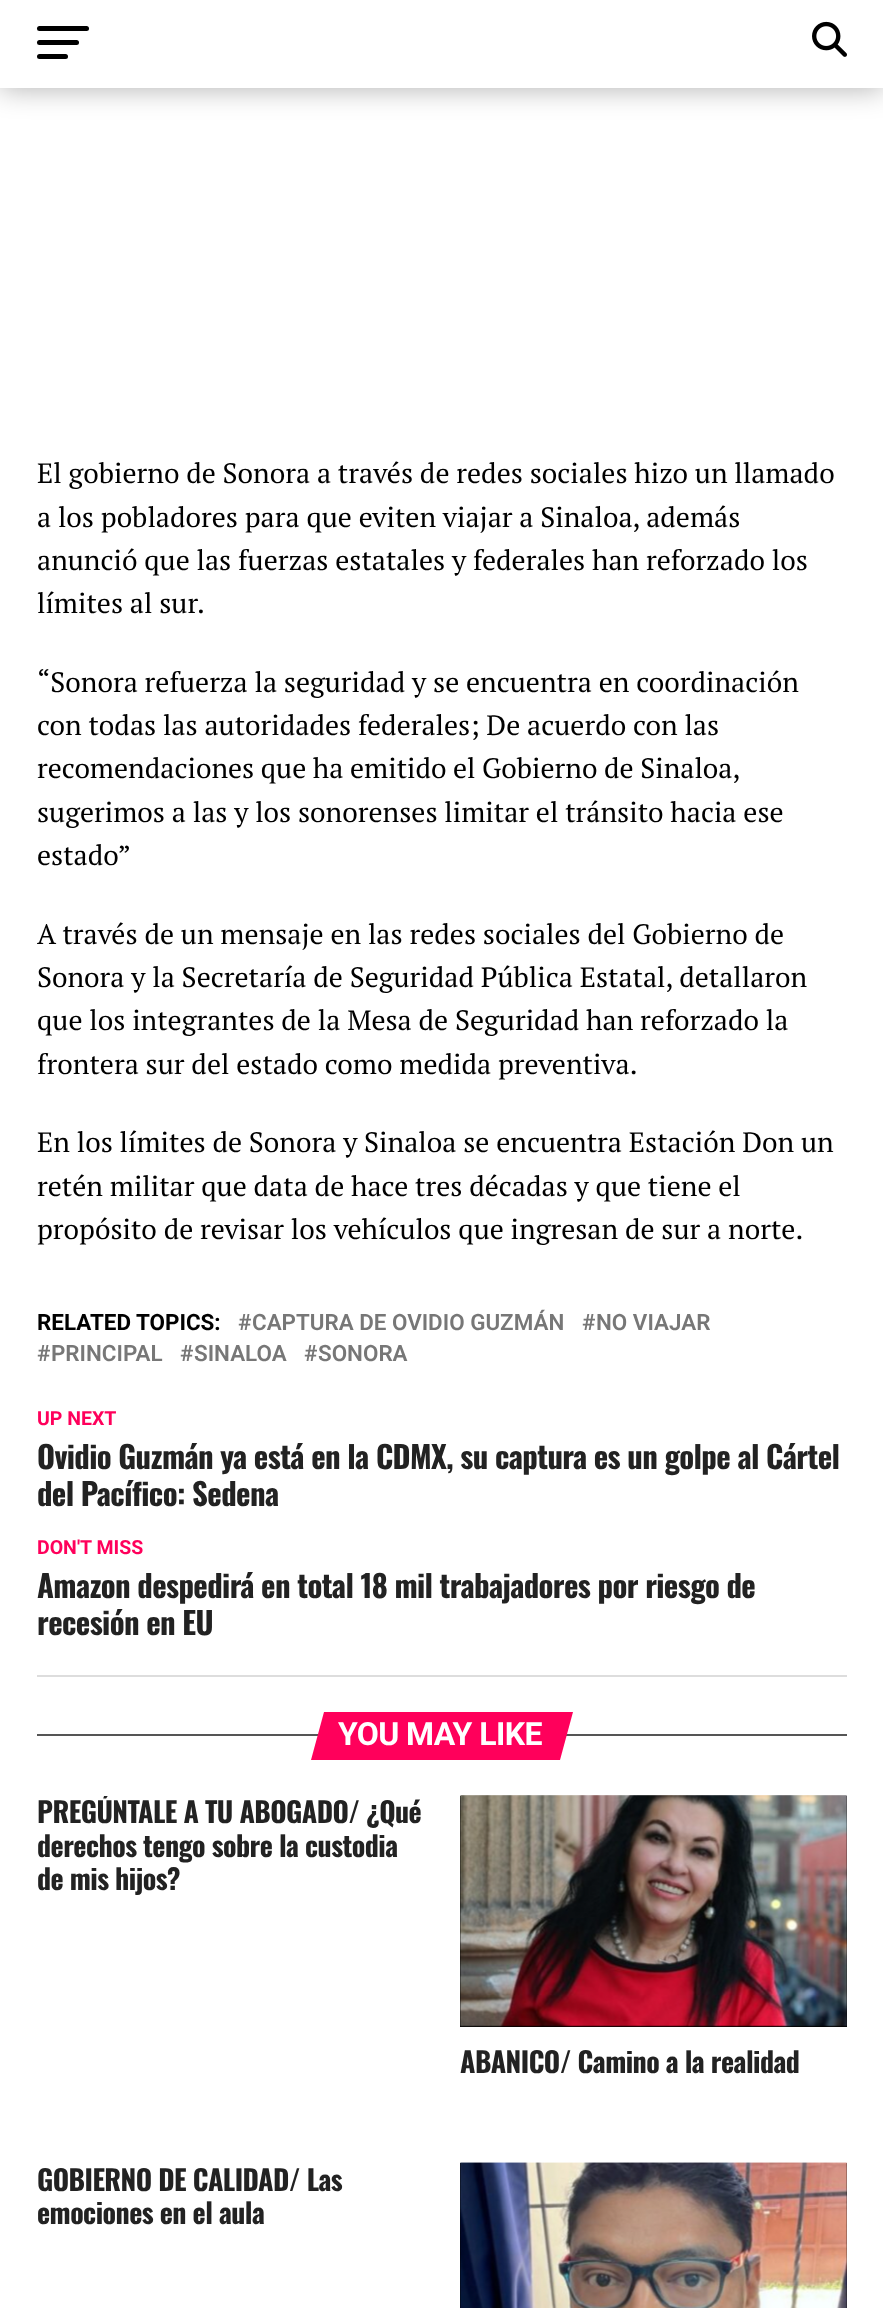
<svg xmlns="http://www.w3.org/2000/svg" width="883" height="2308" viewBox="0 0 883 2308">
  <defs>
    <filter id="blur1" x="-50%" y="-200%" width="200%" height="500%"><feGaussianBlur stdDeviation="14"/></filter>
    <clipPath id="clip1"><rect x="37" y="1796" width="387" height="367"/></clipPath>
  </defs>
  <rect width="100%" height="100%" fill="#ffffff"/>
  <rect x="0" y="2" width="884" height="87" fill="#000000" fill-opacity="0.3" filter="url(#blur1)"/>
  <rect x="0" y="0" width="883" height="88" fill="#ffffff"/>
  <rect x="37" y="26" width="52" height="5" rx="2.5" fill="#000000"/>
  <rect x="37" y="40" width="42" height="5" rx="2.5" fill="#000000"/>
  <rect x="37" y="54" width="31" height="5" rx="2.5" fill="#000000"/>
  <image x="812" y="21" width="35" height="36" href="img1.png"/>
  <text x="37" y="483" font-family="PT Serif" font-size="28" fill="#000000">El gobierno de Sonora a través de redes sociales hizo un llamado</text>
  <text x="37" y="527" font-family="PT Serif" font-size="28" fill="#000000">a los pobladores para que eviten viajar a Sinaloa, además</text>
  <text x="37" y="570" font-family="PT Serif" font-size="28" fill="#000000">anunció que las fuerzas estatales y federales han reforzado los</text>
  <text x="37" y="613" font-family="PT Serif" font-size="28" fill="#000000">límites al sur.</text>
  <text x="37" y="692" font-family="PT Serif" font-size="28" fill="#000000">“Sonora refuerza la seguridad y se encuentra en coordinación</text>
  <text x="37" y="735" font-family="PT Serif" font-size="28" fill="#000000">con todas las autoridades federales; De acuerdo con las</text>
  <text x="37" y="778" word-spacing="-0.25" font-family="PT Serif" font-size="28" fill="#000000">recomendaciones que ha emitido el Gobierno de Sinaloa,</text>
  <text x="37" y="822" font-family="PT Serif" font-size="28" fill="#000000">sugerimos a las y los sonorenses limitar el tránsito hacia ese</text>
  <text x="37" y="865" font-family="PT Serif" font-size="28" fill="#000000">estado”</text>
  <text x="37" y="944" font-family="PT Serif" font-size="28" fill="#000000">A través de un mensaje en las redes sociales del Gobierno de</text>
  <text x="37" y="987" font-family="PT Serif" font-size="28" fill="#000000">Sonora y la Secretaría de Seguridad Pública Estatal, detallaron</text>
  <text x="37" y="1030" font-family="PT Serif" font-size="28" fill="#000000">que los integrantes de la Mesa de Seguridad han reforzado la</text>
  <text x="37" y="1074" font-family="PT Serif" font-size="28" fill="#000000">frontera sur del estado como medida preventiva.</text>
  <text x="37" y="1152" font-family="PT Serif" font-size="28" fill="#000000">En los límites de Sonora y Sinaloa se encuentra Estación Don un</text>
  <text x="37" y="1196" font-family="PT Serif" font-size="28" fill="#000000">retén militar que data de hace tres décadas y que tiene el</text>
  <text x="37" y="1239" font-family="PT Serif" font-size="28" fill="#000000">propósito de revisar los vehículos que ingresan de sur a norte.</text>
  <text x="238" y="1330" font-family="Roboto" font-size="22.4" font-weight="600" fill="#777777">#</text>
  <text x="252" y="1330" font-family="Roboto" font-size="22.4" font-weight="600" fill="#777777">CAPTURA DE OVIDIO GUZMÁN</text>
  <text x="582" y="1330" font-family="Roboto" font-size="22.4" font-weight="600" fill="#777777">#</text>
  <text x="596" y="1330" font-family="Roboto" font-size="22.4" font-weight="600" fill="#777777">NO VIAJAR</text>
  <text x="37" y="1361" font-family="Roboto" font-size="22.4" font-weight="600" fill="#777777">#</text>
  <text x="51" y="1361" font-family="Roboto" font-size="22.4" font-weight="600" fill="#777777">PRINCIPAL</text>
  <text x="180" y="1361" font-family="Roboto" font-size="22.4" font-weight="600" fill="#777777">#</text>
  <text x="194" y="1361" font-family="Roboto" font-size="22.4" font-weight="600" fill="#777777">SINALOA</text>
  <text x="304" y="1361" font-family="Roboto" font-size="22.4" font-weight="600" fill="#777777">#</text>
  <text x="318" y="1361" font-family="Roboto" font-size="22.4" font-weight="600" fill="#777777">SONORA</text>
  <text x="37" y="1330" font-family="Roboto" font-size="22.4" font-weight="bold" fill="#000000">RELATED TOPICS:</text>
  <rect x="37" y="1675" width="810" height="2" fill="#dddddd"/>
  <text x="37" y="1425" font-family="Roboto" font-size="19.5" font-weight="bold" fill="#ff005b">UP NEXT</text>
  <text x="37" y="1469" font-family="Oswald" font-size="30.8" font-weight="bold" letter-spacing="-0.62" fill="#222222">Ovidio Guzmán ya está en la CDMX, su captura es un golpe al Cártel</text>
  <text x="37" y="1506" font-family="Oswald" font-size="30.8" font-weight="bold" letter-spacing="-0.62" fill="#222222">del Pacífico: Sedena</text>
  <text x="37" y="1554" font-family="Roboto" font-size="19.5" font-weight="bold" fill="#ff005b">DON'T MISS</text>
  <text x="37" y="1598" font-family="Oswald" font-size="30.8" font-weight="bold" letter-spacing="-0.62" fill="#222222">Amazon despedirá en total 18 mil trabajadores por riesgo de</text>
  <text x="37" y="1635" font-family="Oswald" font-size="30.8" font-weight="bold" letter-spacing="-0.62" fill="#222222">recesión en EU</text>
  <rect x="37" y="1734" width="810" height="2" fill="#555555"/>
  <path d="M324 1712H573L560 1760H311Z" fill="#ff005b"/>
  <text x="338" y="1745" font-family="Roboto" font-size="32" font-weight="bold" letter-spacing="-0.6" fill="#ffffff">YOU MAY LIKE</text>
  <g clip-path="url(#clip1)">
    <text x="37" y="1823" font-family="Oswald" font-size="28" font-weight="bold" letter-spacing="-0.55" fill="#222222">PREGÚNTALE A TU ABOGADO/ ¿Qué</text>
  </g>
  <text x="37" y="1857" font-family="Oswald" font-size="28" font-weight="bold" letter-spacing="-0.55" fill="#222222">derechos tengo sobre la custodia</text>
  <text x="37" y="1890" font-family="Oswald" font-size="28" font-weight="bold" letter-spacing="-0.55" fill="#222222">de mis hijos?</text>
  <rect x="460" y="1796" width="387" height="231" fill="#000000"/>
  <image x="460" y="1795" width="387" height="232" href="img2.png"/>
  <text x="460" y="2073" font-family="Oswald" font-size="28" font-weight="bold" letter-spacing="-0.55" fill="#222222">ABANICO/ Camino a la realidad</text>
  <text x="37" y="2191" font-family="Oswald" font-size="28" font-weight="bold" letter-spacing="-0.55" fill="#222222">GOBIERNO DE CALIDAD/ Las</text>
  <text x="37" y="2224" font-family="Oswald" font-size="28" font-weight="bold" letter-spacing="-0.55" fill="#222222">emociones en el aula</text>
  <rect x="460" y="2163" width="387" height="145" fill="#000000"/>
  <image x="460" y="2162" width="387" height="146" href="img3.png"/>
</svg>
